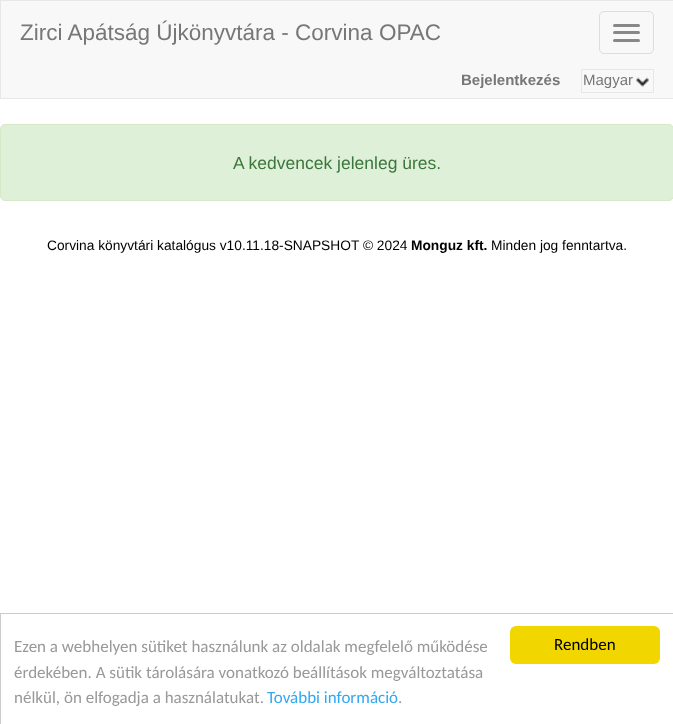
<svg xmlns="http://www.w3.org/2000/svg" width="673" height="724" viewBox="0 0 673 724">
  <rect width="100%" height="100%" fill="#ffffff"/>
  <rect x="0.5" y="0.5" width="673" height="98" fill="#f8f8f8" stroke="#e7e7e7"/>
  <text x="20" y="40" font-family="Liberation Sans" font-size="22.5" fill="#777777">Zirci Apátság Újkönyvtára - Corvina OPAC</text>
  <rect x="599.5" y="11.5" width="54" height="42" rx="4.5" fill="none" stroke="#dddddd"/>
  <rect x="613" y="24" width="27" height="3" rx="1.5" fill="#888888"/>
  <rect x="613" y="31" width="27" height="3" rx="1.5" fill="#888888"/>
  <rect x="613" y="39" width="27" height="3" rx="1.5" fill="#888888"/>
  <text x="461" y="85" font-family="Liberation Sans" font-size="15" font-weight="bold" fill="#777777">Bejelentkezés</text>
  <image x="636" y="77" width="13" height="10" href="img1.png"/>
  <rect x="581.5" y="69.5" width="72" height="23" fill="none" stroke="#e7e7e7"/>
  <text x="583" y="85" font-family="Liberation Sans" font-size="15" fill="#777777">Magyar</text>
  <rect x="0.5" y="124.5" width="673" height="76" rx="4.5" fill="#dff0d8" stroke="#d6e9c6"/>
  <text x="233" y="169" font-family="Liberation Sans" font-size="17.5" fill="#3c763d">A kedvencek jelenleg üres.</text>
  <text x="47" y="250" font-family="Liberation Sans" font-size="13.75" fill="#000000">Corvina könyvtári katalógus v10.11.18-SNAPSHOT © 2024</text>
  <text x="411" y="250" font-family="Liberation Sans" font-size="13.75" font-weight="bold" fill="#000000">Monguz kft.</text>
  <text x="491" y="250" font-family="Liberation Sans" font-size="13.75" fill="#000000">Minden jog fenntartva.</text>
  <rect x="0.5" y="613.5" width="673" height="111" fill="none" stroke="#cccccc"/>
  <text x="14" y="652" font-family="Carlito" font-size="17" fill="#999999">Ezen a webhelyen sütiket használunk az oldalak megfelelő működése</text>
  <text x="14" y="678" font-family="Carlito" font-size="17" fill="#999999">érdekében. A sütik tárolására vonatkozó beállítások megváltoztatása</text>
  <text x="14" y="703" font-family="Carlito" font-size="17" fill="#999999">nélkül, ön elfogadja a használatukat.</text>
  <text x="267" y="703" font-family="Carlito" font-size="17" fill="#31a8f0">További információ</text>
  <text x="398" y="703" font-family="Carlito" font-size="17" fill="#999999">.</text>
  <rect x="510" y="626" width="150" height="38" rx="6" fill="#f1d600"/>
  <text x="554" y="650" font-family="Carlito" font-size="17" fill="#000000">Rendben</text>
</svg>
